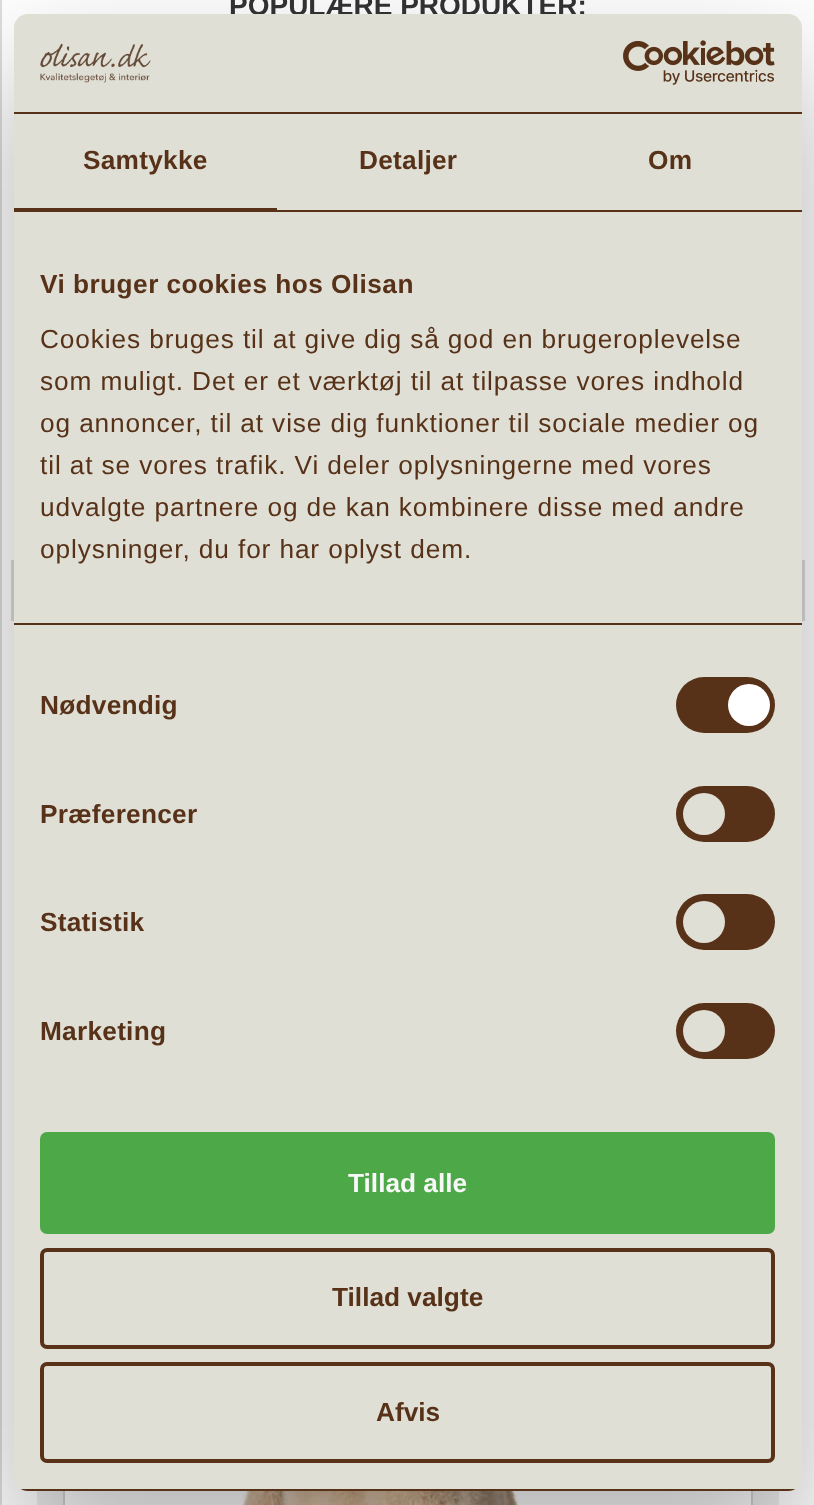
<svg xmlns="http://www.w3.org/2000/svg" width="814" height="1505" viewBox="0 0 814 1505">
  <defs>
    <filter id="blur1" x="-50%" y="-200%" width="200%" height="500%"><feGaussianBlur stdDeviation="59.5"/></filter>
    <clipPath id="clip1"><rect x="14" y="14" width="788" height="1477" rx="14"/></clipPath>
  </defs>
  <rect width="100%" height="100%" fill="#ffffff"/>
  <rect x="0" y="0" width="2" height="1505" fill="#dddddd"/>
  <text x="229" y="15" font-family="Liberation Sans" font-size="28" font-weight="bold" fill="#333333">POPULÆRE PRODUKTER:</text>
  <rect x="13" y="562" width="57" height="57" fill="none" stroke="#dbdbdb" stroke-width="4"/>
  <rect x="746" y="562" width="57" height="57" fill="none" stroke="#dbdbdb" stroke-width="4"/>
  <rect x="37" y="1491" width="742" height="14" fill="#eeeeee"/>
  <rect x="65" y="1491" width="686" height="14" fill="#ffffff"/>
  <rect x="64" y="1249" width="688" height="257" fill="none" stroke="#d2d2d3" stroke-width="2"/>
  <image x="242" y="1491" width="277" height="14" href="img1.png"/>
  <rect x="14" y="70" width="788" height="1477" rx="14" fill="#000000" fill-opacity="0.3" filter="url(#blur1)"/>
  <rect x="14" y="14" width="788" height="1477" rx="14" fill="#e0dfd5"/>
  <rect x="14" y="112" width="788" height="2" fill="#573219"/>
  <image x="40" y="43" width="111" height="40" href="img2.png"/>
  <image x="623" y="40" width="152" height="45" href="img3.png"/>
  <rect x="14" y="210" width="788" height="2" fill="#573219"/>
  <rect x="14" y="208" width="263" height="2" fill="#573219"/>
  <text x="83" y="169" font-family="Liberation Sans" font-size="26.25" font-weight="bold" letter-spacing="0.25" fill="#573219">Samtykke</text>
  <text x="359" y="169" font-family="Liberation Sans" font-size="26.25" font-weight="bold" letter-spacing="0.25" fill="#573219">Detaljer</text>
  <text x="648" y="169" font-family="Liberation Sans" font-size="26.25" font-weight="bold" letter-spacing="0.25" fill="#573219">Om</text>
  <rect x="14" y="623" width="788" height="2" fill="#573219"/>
  <text x="40" y="293" font-family="Liberation Sans" font-size="26.25" font-weight="bold" letter-spacing="0.45" fill="#573219">Vi bruger cookies hos Olisan</text>
  <text x="40" y="348" font-family="Liberation Sans" font-size="26.25" letter-spacing="0.88" fill="#573219">Cookies bruges til at give dig så god en brugeroplevelse</text>
  <text x="40" y="390" font-family="Liberation Sans" font-size="26.25" letter-spacing="0.88" fill="#573219">som muligt. Det er et værktøj til at tilpasse vores indhold</text>
  <text x="40" y="432" font-family="Liberation Sans" font-size="26.25" letter-spacing="0.88" fill="#573219">og annoncer, til at vise dig funktioner til sociale medier og</text>
  <text x="40" y="474" font-family="Liberation Sans" font-size="26.25" letter-spacing="0.88" fill="#573219">til at se vores trafik. Vi deler oplysningerne med vores</text>
  <text x="40" y="516" font-family="Liberation Sans" font-size="26.25" letter-spacing="0.88" fill="#573219">udvalgte partnere og de kan kombinere disse med andre</text>
  <text x="40" y="558" font-family="Liberation Sans" font-size="26.25" letter-spacing="0.88" fill="#573219">oplysninger, du for har oplyst dem.</text>
  <text x="40" y="714" font-family="Liberation Sans" font-size="26.25" font-weight="bold" letter-spacing="0.25" fill="#573219">Nødvendig</text>
  <rect x="676" y="677" width="99" height="56" rx="28" fill="#573219"/>
  <circle cx="749" cy="705" r="21" fill="#ffffff"/>
  <text x="40" y="823" font-family="Liberation Sans" font-size="26.25" font-weight="bold" letter-spacing="0.25" fill="#573219">Præferencer</text>
  <rect x="676" y="786" width="99" height="56" rx="28" fill="#573219"/>
  <circle cx="704" cy="814" r="21" fill="#e0dfd5"/>
  <text x="40" y="931" font-family="Liberation Sans" font-size="26.25" font-weight="bold" letter-spacing="0.25" fill="#573219">Statistik</text>
  <rect x="676" y="894" width="99" height="56" rx="28" fill="#573219"/>
  <circle cx="704" cy="922" r="21" fill="#e0dfd5"/>
  <text x="40" y="1040" font-family="Liberation Sans" font-size="26.25" font-weight="bold" letter-spacing="0.25" fill="#573219">Marketing</text>
  <rect x="676" y="1003" width="99" height="56" rx="28" fill="#573219"/>
  <circle cx="704" cy="1031" r="21" fill="#e0dfd5"/>
  <g clip-path="url(#clip1)">
    <rect x="14" y="1489" width="788" height="2" fill="#573219"/>
  </g>
  <rect x="42" y="1134" width="731" height="98" rx="5" fill="#4da847" stroke="#4da847" stroke-width="4"/>
  <text x="348" y="1192" font-family="Liberation Sans" font-size="26.25" font-weight="bold" fill="#f8f8f9">Tillad alle</text>
  <rect x="42" y="1250" width="731" height="97" rx="5" fill="none" stroke="#573219" stroke-width="4"/>
  <text x="332" y="1306" font-family="Liberation Sans" font-size="26.25" font-weight="bold" fill="#573219">Tillad valgte</text>
  <rect x="42" y="1364" width="731" height="97" rx="5" fill="none" stroke="#573219" stroke-width="4"/>
  <text x="376" y="1421" font-family="Liberation Sans" font-size="26.25" font-weight="bold" fill="#573219">Afvis</text>
</svg>
